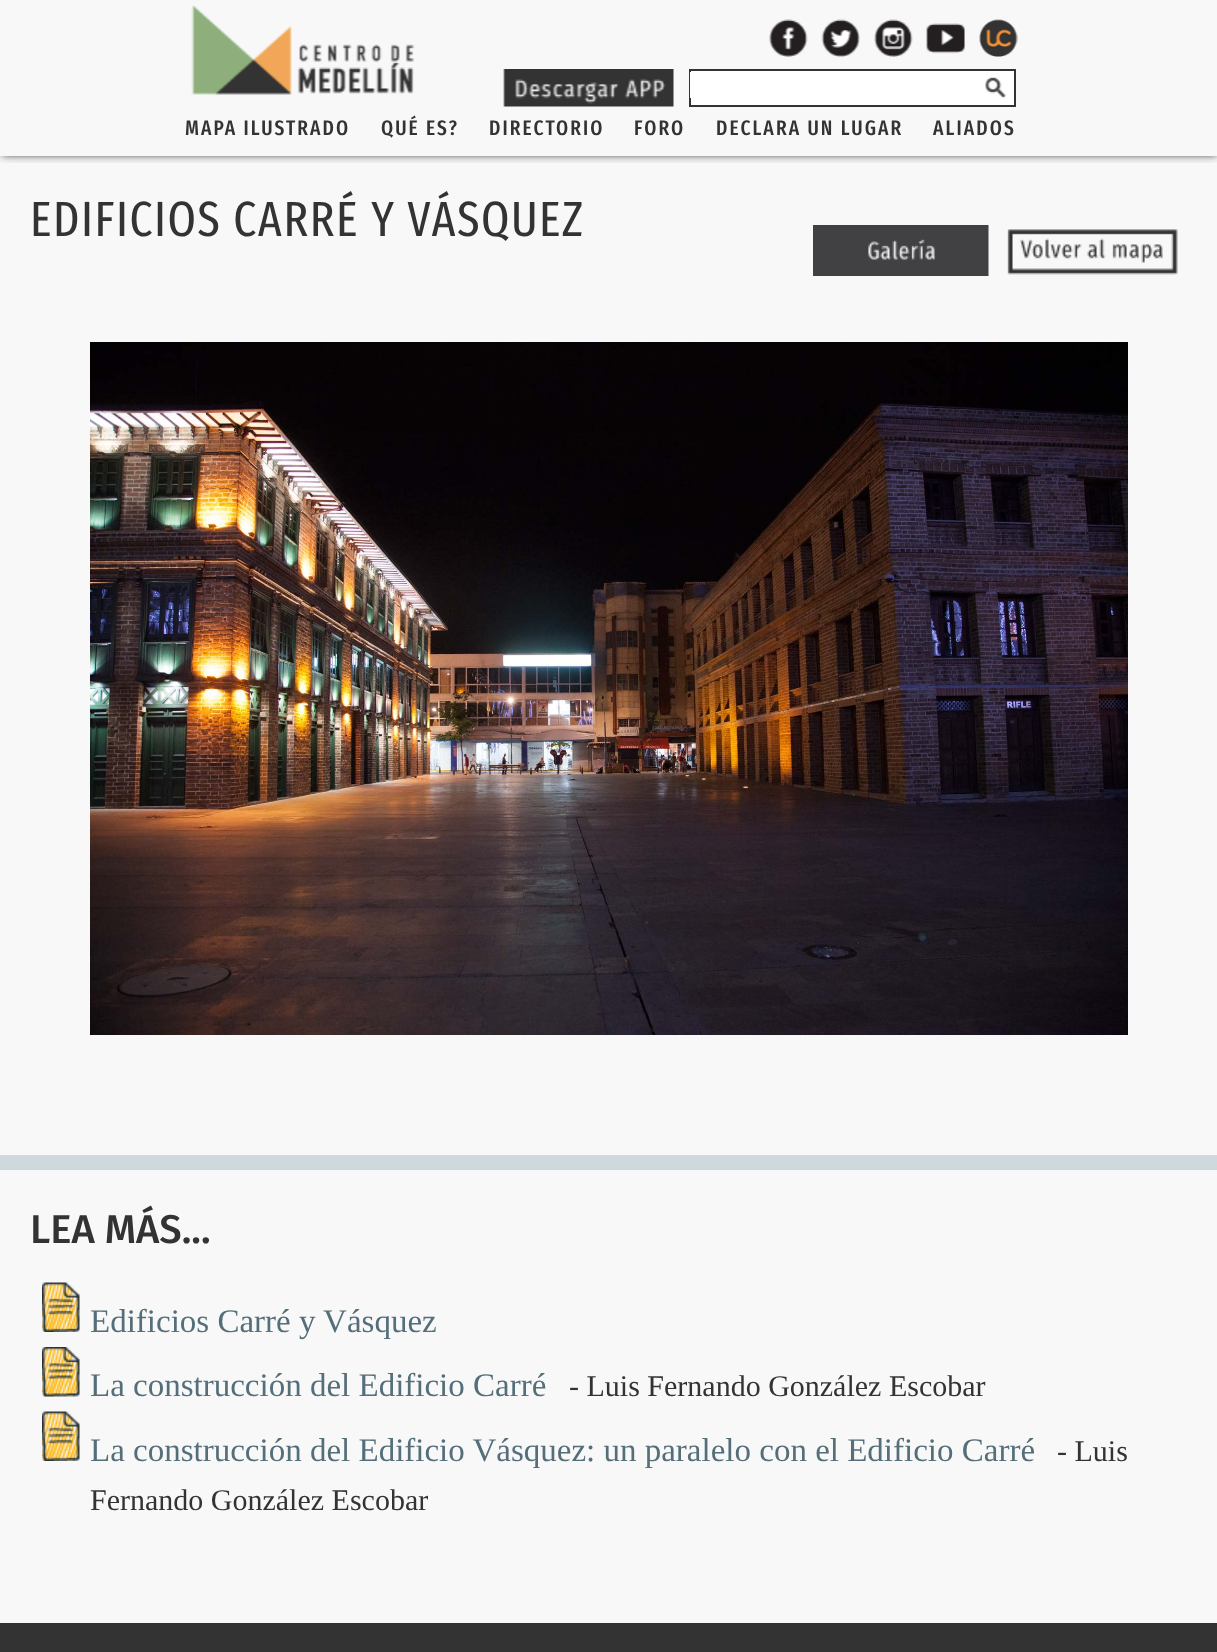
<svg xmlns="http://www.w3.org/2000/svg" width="1217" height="1652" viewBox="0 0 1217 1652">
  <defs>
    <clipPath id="clip1"><rect x="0" y="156" width="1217" height="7"/></clipPath>
    <filter id="blur1" x="-50%" y="-200%" width="200%" height="500%"><feGaussianBlur stdDeviation="4"/></filter>
  </defs>
  <rect width="100%" height="100%" fill="#f8f8f8"/>
  <g clip-path="url(#clip1)">
    <rect x="2" y="2" width="1215" height="153" fill="#333333" filter="url(#blur1)"/>
  </g>
  <image x="191" y="5" width="224" height="90" href="img1.png"/>
  <image x="769" y="19" width="39" height="38" href="img2.png"/>
  <image x="821" y="19" width="39" height="38" href="img3.png"/>
  <image x="874" y="19" width="39" height="38" href="img4.png"/>
  <image x="926" y="23" width="39" height="31" href="img5.png"/>
  <image x="979" y="19" width="39" height="38" href="img6.png"/>
  <image x="503" y="69" width="171" height="38" href="img7.png"/>
  <rect x="690" y="70" width="325" height="36" fill="#ffffff" stroke="#333333" stroke-width="2"/>
  <rect x="690" y="72" width="1" height="26" fill="#ffffff"/>
  <image x="985" y="77" width="22" height="22" href="img8.png"/>
  <text x="185" y="135" font-family="Fira Sans Extra Condensed" font-size="21" font-weight="500" letter-spacing="2.1" fill="#333333">MAPA ILUSTRADO</text>
  <text x="381" y="135" font-family="Fira Sans Extra Condensed" font-size="21" font-weight="500" letter-spacing="2.1" fill="#333333">QUÉ ES?</text>
  <text x="489" y="135" font-family="Fira Sans Extra Condensed" font-size="21" font-weight="500" letter-spacing="2.1" fill="#333333">DIRECTORIO</text>
  <text x="634" y="135" font-family="Fira Sans Extra Condensed" font-size="21" font-weight="500" letter-spacing="2.1" fill="#333333">FORO</text>
  <text x="716" y="135" font-family="Fira Sans Extra Condensed" font-size="21" font-weight="500" letter-spacing="2.1" fill="#333333">DECLARA UN LUGAR</text>
  <text x="933" y="135" font-family="Fira Sans Extra Condensed" font-size="21" font-weight="500" letter-spacing="2.1" fill="#333333">ALIADOS</text>
  <text x="30" y="236" font-family="Fira Sans Extra Condensed" font-size="49.5" letter-spacing="1.5" fill="#333333">EDIFICIOS CARRÉ Y VÁSQUEZ</text>
  <image x="813" y="225" width="176" height="51" href="img9.png"/>
  <image x="1007" y="229" width="171" height="46" href="img10.png"/>
  <image x="90" y="342" width="1038" height="693" href="img11.png"/>
  <rect x="0" y="1155" width="1217" height="15" fill="#cfd8dc"/>
  <text x="30" y="1243" font-family="Fira Sans" font-size="40" font-weight="500" fill="#333333">LEA MÁS...</text>
  <image x="42" y="1282" width="38" height="50" href="img12.png"/>
  <text x="90" y="1332" font-family="Liberation Serif" font-size="33" fill="#546e7a">Edificios Carré y Vásquez</text>
  <image x="42" y="1347" width="38" height="50" href="img13.png"/>
  <text x="90" y="1396" font-family="Liberation Serif" font-size="33" fill="#546e7a">La construcción del Edificio Carré</text>
  <text x="569" y="1396" font-family="Liberation Serif" font-size="30" fill="#333333">- Luis Fernando González Escobar</text>
  <image x="42" y="1411" width="38" height="50" href="img12.png"/>
  <text x="90" y="1461" font-family="Liberation Serif" font-size="33" fill="#546e7a">La construcción del Edificio Vásquez: un paralelo con el Edificio Carré</text>
  <text x="1057" y="1461" font-family="Liberation Serif" font-size="30" fill="#333333">- Luis</text>
  <text x="90" y="1510" font-family="Liberation Serif" font-size="30" fill="#333333">Fernando González Escobar</text>
  <rect x="0" y="1623" width="1217" height="29" fill="#333333"/>
</svg>
